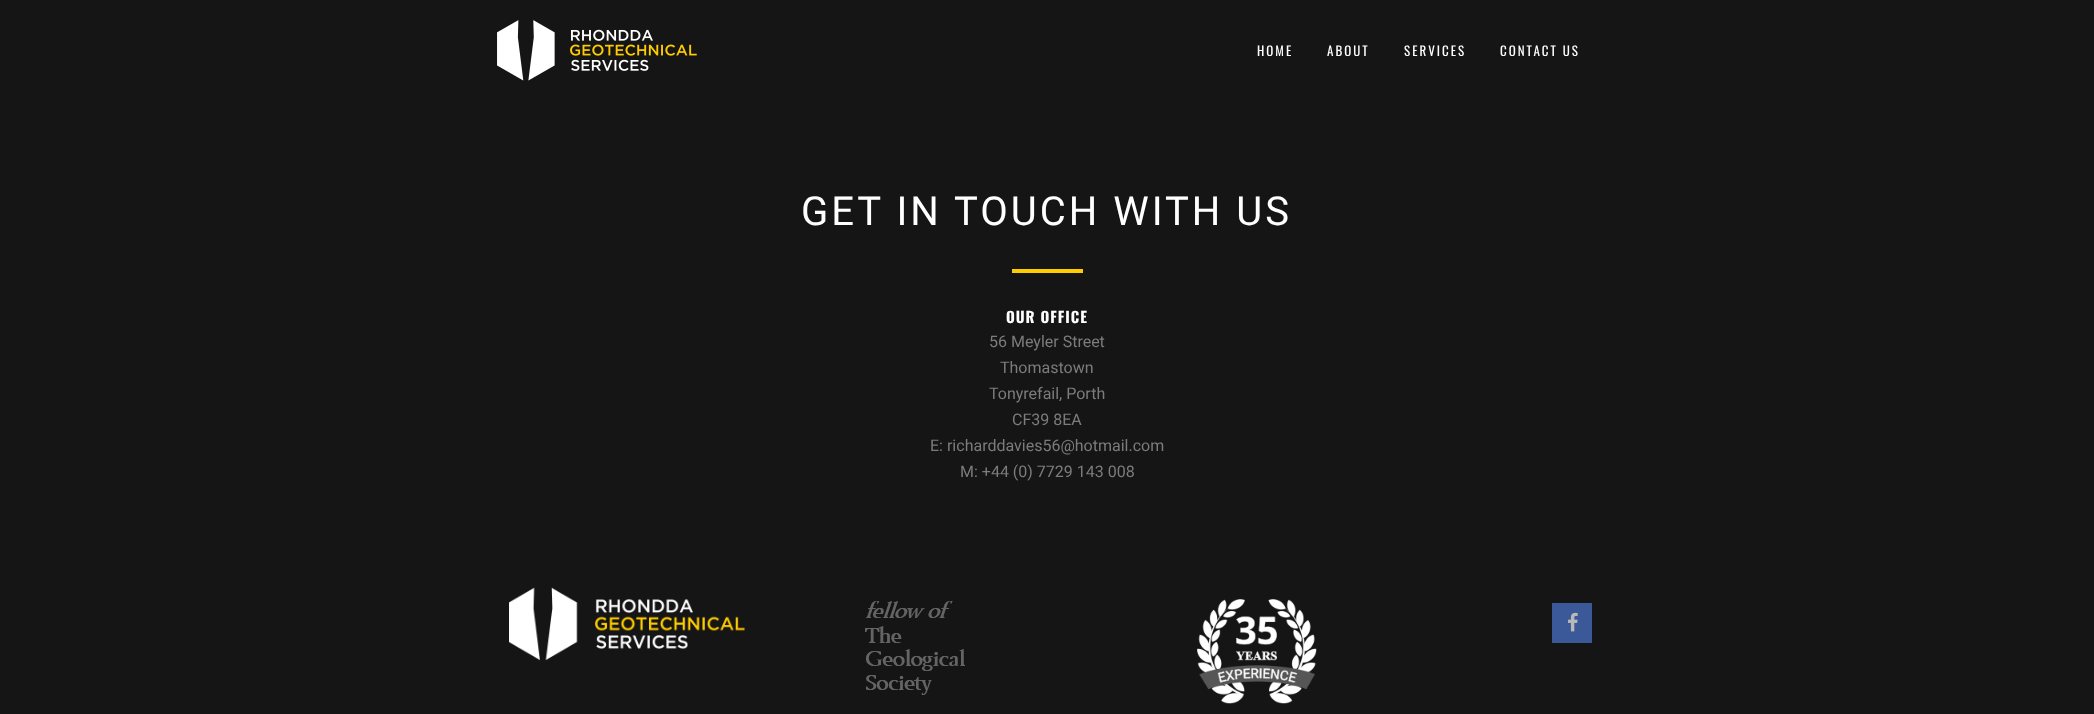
<svg xmlns="http://www.w3.org/2000/svg" width="2094" height="714" viewBox="0 0 2094 714">
  <rect width="100%" height="100%" fill="#151515"/>
  <image x="497" y="20" width="200" height="61" href="img1.png"/>
  <text x="1257" y="56" font-family="Oswald" font-size="13" letter-spacing="2" fill="#ffffff">HOME</text>
  <text x="1327" y="56" font-family="Oswald" font-size="13" letter-spacing="2" fill="#ffffff">ABOUT</text>
  <text x="1404" y="56" font-family="Oswald" font-size="13" letter-spacing="2" fill="#ffffff">SERVICES</text>
  <text x="1500" y="56" font-family="Oswald" font-size="13" letter-spacing="2" fill="#ffffff">CONTACT US</text>
  <text x="801" y="225" font-family="Roboto" font-size="40" letter-spacing="3" fill="#ffffff">GET IN TOUCH WITH US</text>
  <rect x="1012" y="269" width="71" height="4" fill="#ffcc00"/>
  <text x="1006" y="323" font-family="Oswald" font-size="15" font-weight="bold" letter-spacing="1" fill="#ffffff">OUR OFFICE</text>
  <text x="989" y="347" font-family="Roboto" font-size="16" fill="#7c7c7c">56 Meyler Street</text>
  <text x="1000" y="373" font-family="Roboto" font-size="16" fill="#7c7c7c">Thomastown</text>
  <text x="989" y="399" font-family="Roboto" font-size="16" fill="#7c7c7c">Tonyrefail, Porth</text>
  <text x="1012" y="425" font-family="Roboto" font-size="16" fill="#7c7c7c">CF39 8EA</text>
  <text x="930" y="451" font-family="Roboto" font-size="16" fill="#7c7c7c">E: richarddavies56@hotmail.com</text>
  <text x="960" y="477" font-family="Roboto" font-size="16" fill="#7c7c7c">M: +44 (0) 7729 143 008</text>
  <image x="509" y="587" width="236" height="74" href="img2.png"/>
  <image x="865" y="601" width="100" height="94" href="img3.png"/>
  <image x="1197" y="599" width="120" height="105" href="img4.png"/>
  <rect x="1552" y="603" width="40" height="40" fill="#3b5998"/>
  <image x="1568" y="612" width="10" height="20" href="img5.png"/>
</svg>
